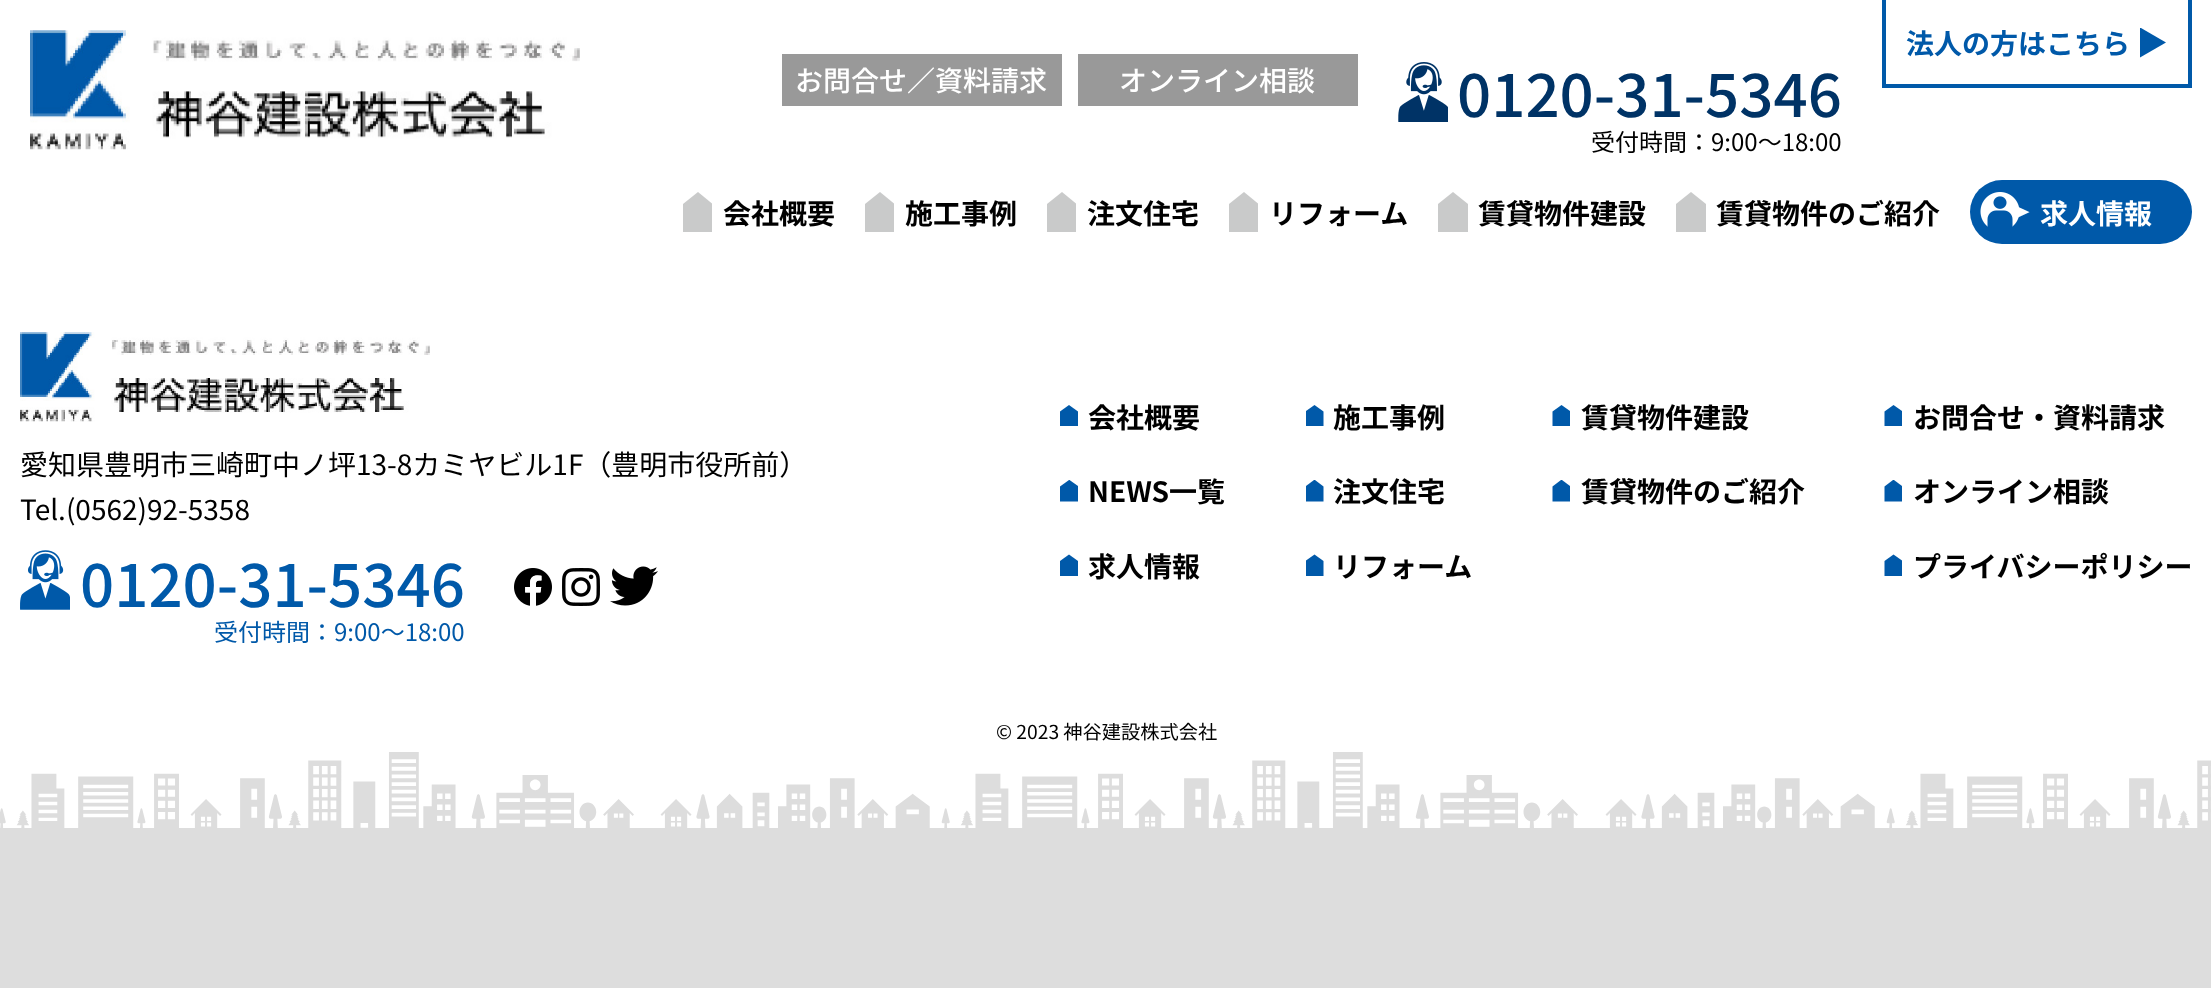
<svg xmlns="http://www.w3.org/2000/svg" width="2211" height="988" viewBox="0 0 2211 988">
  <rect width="100%" height="100%" fill="#ffffff"/>
  <image x="30" y="30" width="550" height="120" href="img1.png"/>
  <rect x="782" y="54" width="280" height="52" fill="#999999"/>
  <text x="795" y="91" font-family="Noto Sans JP" font-size="28" font-weight="500" fill="#ffffff">お問合せ／資料請求</text>
  <rect x="1078" y="54" width="280" height="52" fill="#999999"/>
  <text x="1119" y="91" font-family="Noto Sans JP" font-size="28" font-weight="500" fill="#ffffff">オンライン相談</text>
  <rect x="1884" y="-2" width="306" height="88" fill="none" stroke="#0059a9" stroke-width="4"/>
  <text x="1906" y="54" font-family="Noto Sans JP" font-size="28" font-weight="bold" fill="#0059a9">法人の方はこちら</text>
  <path d="M2140 28V57.5L2166 42.5L2141 28Z" fill="#0059a9"/>
  <image x="1398" y="62" width="50" height="60" href="img2.png"/>
  <text x="1457" y="117" font-family="Noto Sans JP" font-size="60" font-weight="500" fill="#003366">0120-31-5346</text>
  <text x="1591" y="151" font-family="Noto Sans JP" font-size="24" fill="#000000">受付時間：9:00〜18:00</text>
  <path d="M683 204L698 192L712 203.5V232H683Z" fill="#c9caca"/>
  <text x="723" y="224" font-family="Noto Sans JP" font-size="28" font-weight="bold" fill="#000000">会社概要</text>
  <path d="M865 204L880 192L894 203.5V232H865Z" fill="#c9caca"/>
  <text x="905" y="224" font-family="Noto Sans JP" font-size="28" font-weight="bold" fill="#000000">施工事例</text>
  <path d="M1047 204L1062 192L1076 203.5V232H1047Z" fill="#c9caca"/>
  <text x="1087" y="224" font-family="Noto Sans JP" font-size="28" font-weight="bold" fill="#000000">注文住宅</text>
  <path d="M1229 204L1244 192L1258 203.5V232H1229Z" fill="#c9caca"/>
  <text x="1269" y="224" font-family="Noto Sans JP" font-size="28" font-weight="bold" fill="#000000">リフォーム</text>
  <path d="M1438 204V232H1468V204L1453 192Z" fill="#c9caca"/>
  <text x="1478" y="224" font-family="Noto Sans JP" font-size="28" font-weight="bold" fill="#000000">賃貸物件建設</text>
  <path d="M1676 204V232H1706V204L1691 192Z" fill="#c9caca"/>
  <text x="1716" y="224" font-family="Noto Sans JP" font-size="28" font-weight="bold" fill="#000000">賃貸物件のご紹介</text>
  <rect x="1970" y="180" width="222" height="64" rx="32" fill="#0059a9"/>
  <image x="1980" y="192" width="50" height="35" href="img3.png"/>
  <text x="2040" y="224" font-family="Noto Sans JP" font-size="28" font-weight="bold" fill="#ffffff">求人情報</text>
  <image x="0" y="284" width="2211" height="704" href="img4.png"/>
  <image x="20" y="332" width="410" height="90" href="img5.png"/>
  <text x="20" y="475" font-family="Noto Sans JP" font-size="28" fill="#000000">愛知県豊明市三崎町中ノ坪13-8カミヤビル1F（豊明市役所前）</text>
  <text x="20" y="520" font-family="Noto Sans JP" font-size="28" fill="#000000">Tel.(0562)92-5358</text>
  <image x="20" y="550" width="50" height="60" href="img6.png"/>
  <text x="80" y="607" font-family="Noto Sans JP" font-size="60" font-weight="500" fill="#0059a9">0120-31-5346</text>
  <text x="214" y="641" font-family="Noto Sans JP" font-size="24" fill="#0059a9">受付時間：9:00〜18:00</text>
  <image x="514" y="568" width="38" height="38" href="img7.png"/>
  <image x="562" y="568" width="38" height="38" href="img8.png"/>
  <image x="610" y="566" width="48" height="40" href="img9.png"/>
  <path d="M1060 411.5L1069 405L1078 411.5V426H1060Z" fill="#0059a9"/>
  <text x="1088" y="428" font-family="Noto Sans JP" font-size="28" font-weight="bold" fill="#000000">会社概要</text>
  <path d="M1060 486.5V501.5H1078V486L1069.5 480H1069Z" fill="#0059a9"/>
  <text x="1088" y="502" font-family="Noto Sans JP" font-size="28" font-weight="bold" fill="#000000">NEWS一覧</text>
  <path d="M1060 561L1069 554.5L1078 561V576H1060Z" fill="#0059a9"/>
  <text x="1088" y="577" font-family="Noto Sans JP" font-size="28" font-weight="bold" fill="#000000">求人情報</text>
  <path d="M1323.5 426H1306V411L1314.5 405L1323.5 411.5Z" fill="#0059a9"/>
  <text x="1333" y="428" font-family="Noto Sans JP" font-size="28" font-weight="bold" fill="#000000">施工事例</text>
  <path d="M1315 480L1323.5 486.5V501.5H1306V486L1314 480Z" fill="#0059a9"/>
  <text x="1333" y="502" font-family="Noto Sans JP" font-size="28" font-weight="bold" fill="#000000">注文住宅</text>
  <path d="M1323.5 576H1306V560.5L1314.5 554.5L1323.5 561Z" fill="#0059a9"/>
  <text x="1333" y="577" font-family="Noto Sans JP" font-size="28" font-weight="bold" fill="#000000">リフォーム</text>
  <path d="M1552.5 411.5L1561.5 405L1570 411V426H1552.5Z" fill="#0059a9"/>
  <text x="1581" y="428" font-family="Noto Sans JP" font-size="28" font-weight="bold" fill="#000000">賃貸物件建設</text>
  <path d="M1552.5 486.5V501.5H1570V486L1562 480H1561Z" fill="#0059a9"/>
  <text x="1581" y="502" font-family="Noto Sans JP" font-size="28" font-weight="bold" fill="#000000">賃貸物件のご紹介</text>
  <path d="M1884.5 411.5L1893.5 405L1902 411V426H1884.5Z" fill="#0059a9"/>
  <text x="1913" y="428" font-family="Noto Sans JP" font-size="28" font-weight="bold" fill="#000000">お問合せ・資料請求</text>
  <path d="M1884.5 486.5V501.5H1902V486L1894 480H1893Z" fill="#0059a9"/>
  <text x="1913" y="502" font-family="Noto Sans JP" font-size="28" font-weight="bold" fill="#000000">オンライン相談</text>
  <path d="M1884.5 561L1893.5 554.5L1902 560.5V576H1884.5Z" fill="#0059a9"/>
  <text x="1913" y="577" font-family="Noto Sans JP" font-size="28" font-weight="bold" fill="#000000">プライバシーポリシー</text>
  <text x="996" y="739" font-family="Noto Sans JP" font-size="19.25" fill="#000000">© 2023 神谷建設株式会社</text>
</svg>
